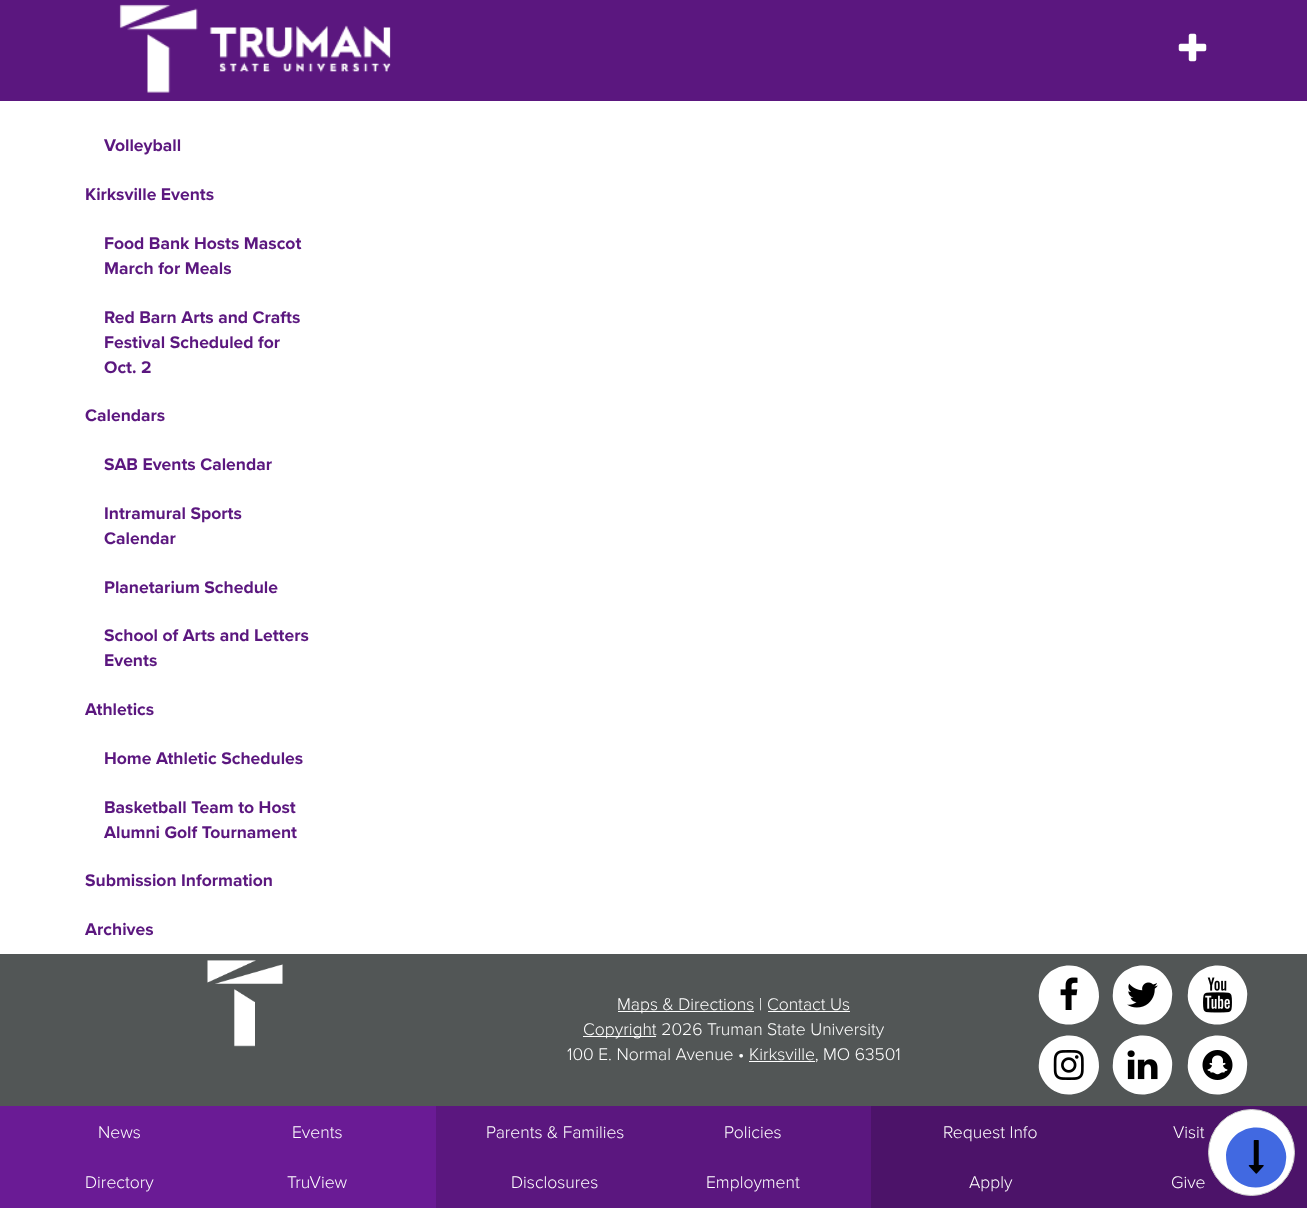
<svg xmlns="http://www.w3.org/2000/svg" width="1307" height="1208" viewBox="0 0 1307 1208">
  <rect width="100%" height="100%" fill="#ffffff"/>
  <rect x="0" y="0" width="1307" height="101" fill="#5b177f"/>
  <image x="119" y="4" width="272" height="89" href="img1.png"/>
  <image x="1178" y="33" width="29" height="29" href="img2.png"/>
  <text x="104" y="151" font-family="Proxima Nova" font-size="17.5" font-weight="bold" fill="#5b177f">Volleyball</text>
  <text x="85" y="200" font-family="Proxima Nova" font-size="17.5" font-weight="bold" fill="#5b177f">Kirksville Events</text>
  <text x="104" y="249" font-family="Proxima Nova" font-size="17.5" font-weight="bold" fill="#5b177f">Food Bank Hosts Mascot</text>
  <text x="104" y="274" font-family="Proxima Nova" font-size="17.5" font-weight="bold" fill="#5b177f">March for Meals</text>
  <text x="104" y="323" font-family="Proxima Nova" font-size="17.5" font-weight="bold" fill="#5b177f">Red Barn Arts and Crafts</text>
  <text x="104" y="348" font-family="Proxima Nova" font-size="17.5" font-weight="bold" fill="#5b177f">Festival Scheduled for</text>
  <text x="104" y="373" font-family="Proxima Nova" font-size="17.5" font-weight="bold" fill="#5b177f">Oct. 2</text>
  <text x="85" y="421" font-family="Proxima Nova" font-size="17.5" font-weight="bold" fill="#5b177f">Calendars</text>
  <text x="104" y="470" font-family="Proxima Nova" font-size="17.5" font-weight="bold" fill="#5b177f">SAB Events Calendar</text>
  <text x="104" y="519" font-family="Proxima Nova" font-size="17.5" font-weight="bold" fill="#5b177f">Intramural Sports</text>
  <text x="104" y="544" font-family="Proxima Nova" font-size="17.5" font-weight="bold" fill="#5b177f">Calendar</text>
  <text x="104" y="593" font-family="Proxima Nova" font-size="17.5" font-weight="bold" fill="#5b177f">Planetarium Schedule</text>
  <text x="104" y="641" font-family="Proxima Nova" font-size="17.5" font-weight="bold" fill="#5b177f">School of Arts and Letters</text>
  <text x="104" y="666" font-family="Proxima Nova" font-size="17.5" font-weight="bold" fill="#5b177f">Events</text>
  <text x="85" y="715" font-family="Proxima Nova" font-size="17.5" font-weight="bold" fill="#5b177f">Athletics</text>
  <text x="104" y="764" font-family="Proxima Nova" font-size="17.5" font-weight="bold" fill="#5b177f">Home Athletic Schedules</text>
  <text x="104" y="813" font-family="Proxima Nova" font-size="17.5" font-weight="bold" fill="#5b177f">Basketball Team to Host</text>
  <text x="104" y="838" font-family="Proxima Nova" font-size="17.5" font-weight="bold" fill="#5b177f">Alumni Golf Tournament</text>
  <text x="85" y="886" font-family="Proxima Nova" font-size="17.5" font-weight="bold" fill="#5b177f">Submission Information</text>
  <text x="85" y="935" font-family="Proxima Nova" font-size="17.5" font-weight="bold" fill="#5b177f">Archives</text>
  <rect x="0" y="954" width="1307" height="152" fill="#525656"/>
  <image x="207" y="960" width="76" height="87" href="img3.png"/>
  <rect x="618" y="1011" width="136" height="1" fill="#ffffff"/>
  <text x="617" y="1010" font-family="Proxima Nova" font-size="17.5" font-weight="300" fill="#ffffff">Maps &amp; Directions | Contact Us</text>
  <rect x="768" y="1011" width="82" height="1" fill="#ffffff"/>
  <rect x="583" y="1036" width="73" height="1" fill="#ffffff"/>
  <text x="583" y="1035" font-family="Proxima Nova" font-size="17.5" font-weight="300" fill="#ffffff">Copyright 2026 Truman State University</text>
  <text x="567" y="1060" font-family="Proxima Nova" font-size="17.5" font-weight="300" fill="#ffffff">100 E. Normal Avenue • Kirksville, MO 63501</text>
  <rect x="749" y="1061" width="66" height="1" fill="#ffffff"/>
  <path d="M1095 980C1098 985 1099 991 1099 997C1097 1026 1058 1035 1043 1010C1040 1005 1038 999 1039 993C1041 964 1080 955 1095 980Z" fill="#ffffff"/>
  <image x="1060" y="977" width="18" height="33" href="img4.png"/>
  <path d="M1168 980C1171 985 1173 991 1172 997C1171 1026 1131 1035 1117 1010C1114 1005 1112 999 1113 993C1114 964 1154 955 1168 980Z" fill="#ffffff"/>
  <image x="1127" y="982" width="31" height="26" href="img5.png"/>
  <path d="M1243 980C1246 985 1248 991 1247 997C1246 1026 1206 1035 1192 1010C1189 1005 1187 999 1188 993C1189 964 1229 955 1243 980Z" fill="#ffffff"/>
  <image x="1203" y="977" width="29" height="36" href="img6.png"/>
  <path d="M1095 1050C1098 1055 1099 1061 1099 1067C1097 1096 1058 1105 1043 1080C1040 1075 1038 1069 1039 1063C1041 1034 1080 1025 1095 1050Z" fill="#ffffff"/>
  <image x="1053" y="1050" width="31" height="30" href="img7.png"/>
  <path d="M1168 1050C1171 1055 1173 1061 1172 1067C1171 1096 1131 1105 1117 1080C1114 1075 1112 1069 1113 1063C1114 1034 1154 1025 1168 1050Z" fill="#ffffff"/>
  <image x="1127" y="1050" width="31" height="30" href="img8.png"/>
  <path d="M1243 1050C1246 1055 1248 1061 1247 1067C1246 1096 1206 1105 1192 1080C1189 1075 1187 1069 1188 1063C1189 1034 1229 1025 1243 1050Z" fill="#ffffff"/>
  <image x="1202" y="1050" width="31" height="30" href="img9.png"/>
  <rect x="0" y="1106" width="436" height="102" fill="#6a1b95"/>
  <text x="98" y="1138" font-family="Proxima Nova" font-size="17.5" font-weight="300" fill="#ffffff">News</text>
  <text x="292" y="1138" font-family="Proxima Nova" font-size="17.5" font-weight="300" fill="#ffffff">Events</text>
  <text x="85" y="1188" font-family="Proxima Nova" font-size="17.5" font-weight="300" fill="#ffffff">Directory</text>
  <text x="287" y="1188" font-family="Proxima Nova" font-size="17.5" font-weight="300" fill="#ffffff">TruView</text>
  <rect x="436" y="1106" width="435" height="102" fill="#5b177f"/>
  <text x="486" y="1138" font-family="Proxima Nova" font-size="17.5" font-weight="300" fill="#ffffff">Parents &amp; Families</text>
  <text x="724" y="1138" font-family="Proxima Nova" font-size="17.5" font-weight="300" fill="#ffffff">Policies</text>
  <text x="511" y="1188" font-family="Proxima Nova" font-size="17.5" font-weight="300" fill="#ffffff">Disclosures</text>
  <text x="706" y="1188" font-family="Proxima Nova" font-size="17.5" font-weight="300" fill="#ffffff">Employment</text>
  <rect x="871" y="1106" width="436" height="102" fill="#4c1369"/>
  <text x="943" y="1138" font-family="Proxima Nova" font-size="17.5" font-weight="300" fill="#ffffff">Request Info</text>
  <text x="1173" y="1138" font-family="Proxima Nova" font-size="17.5" font-weight="300" fill="#ffffff">Visit</text>
  <text x="969" y="1188" font-family="Proxima Nova" font-size="17.5" font-weight="300" fill="#ffffff">Apply</text>
  <text x="1171" y="1188" font-family="Proxima Nova" font-size="17.5" font-weight="300" fill="#ffffff">Give</text>
  <circle cx="1251.5" cy="1152.5" r="43" fill="#ffffff" stroke="#cccccc"/>
  <path d="M1282 1142C1285 1148 1287 1154 1286 1160C1284 1189 1245 1198 1230 1173C1227 1167 1226 1161 1226 1155C1228 1126 1267 1117 1282 1142Z" fill="#4169e1"/>
  <image x="1248" y="1140" width="16" height="34" href="img10.png"/>
</svg>
